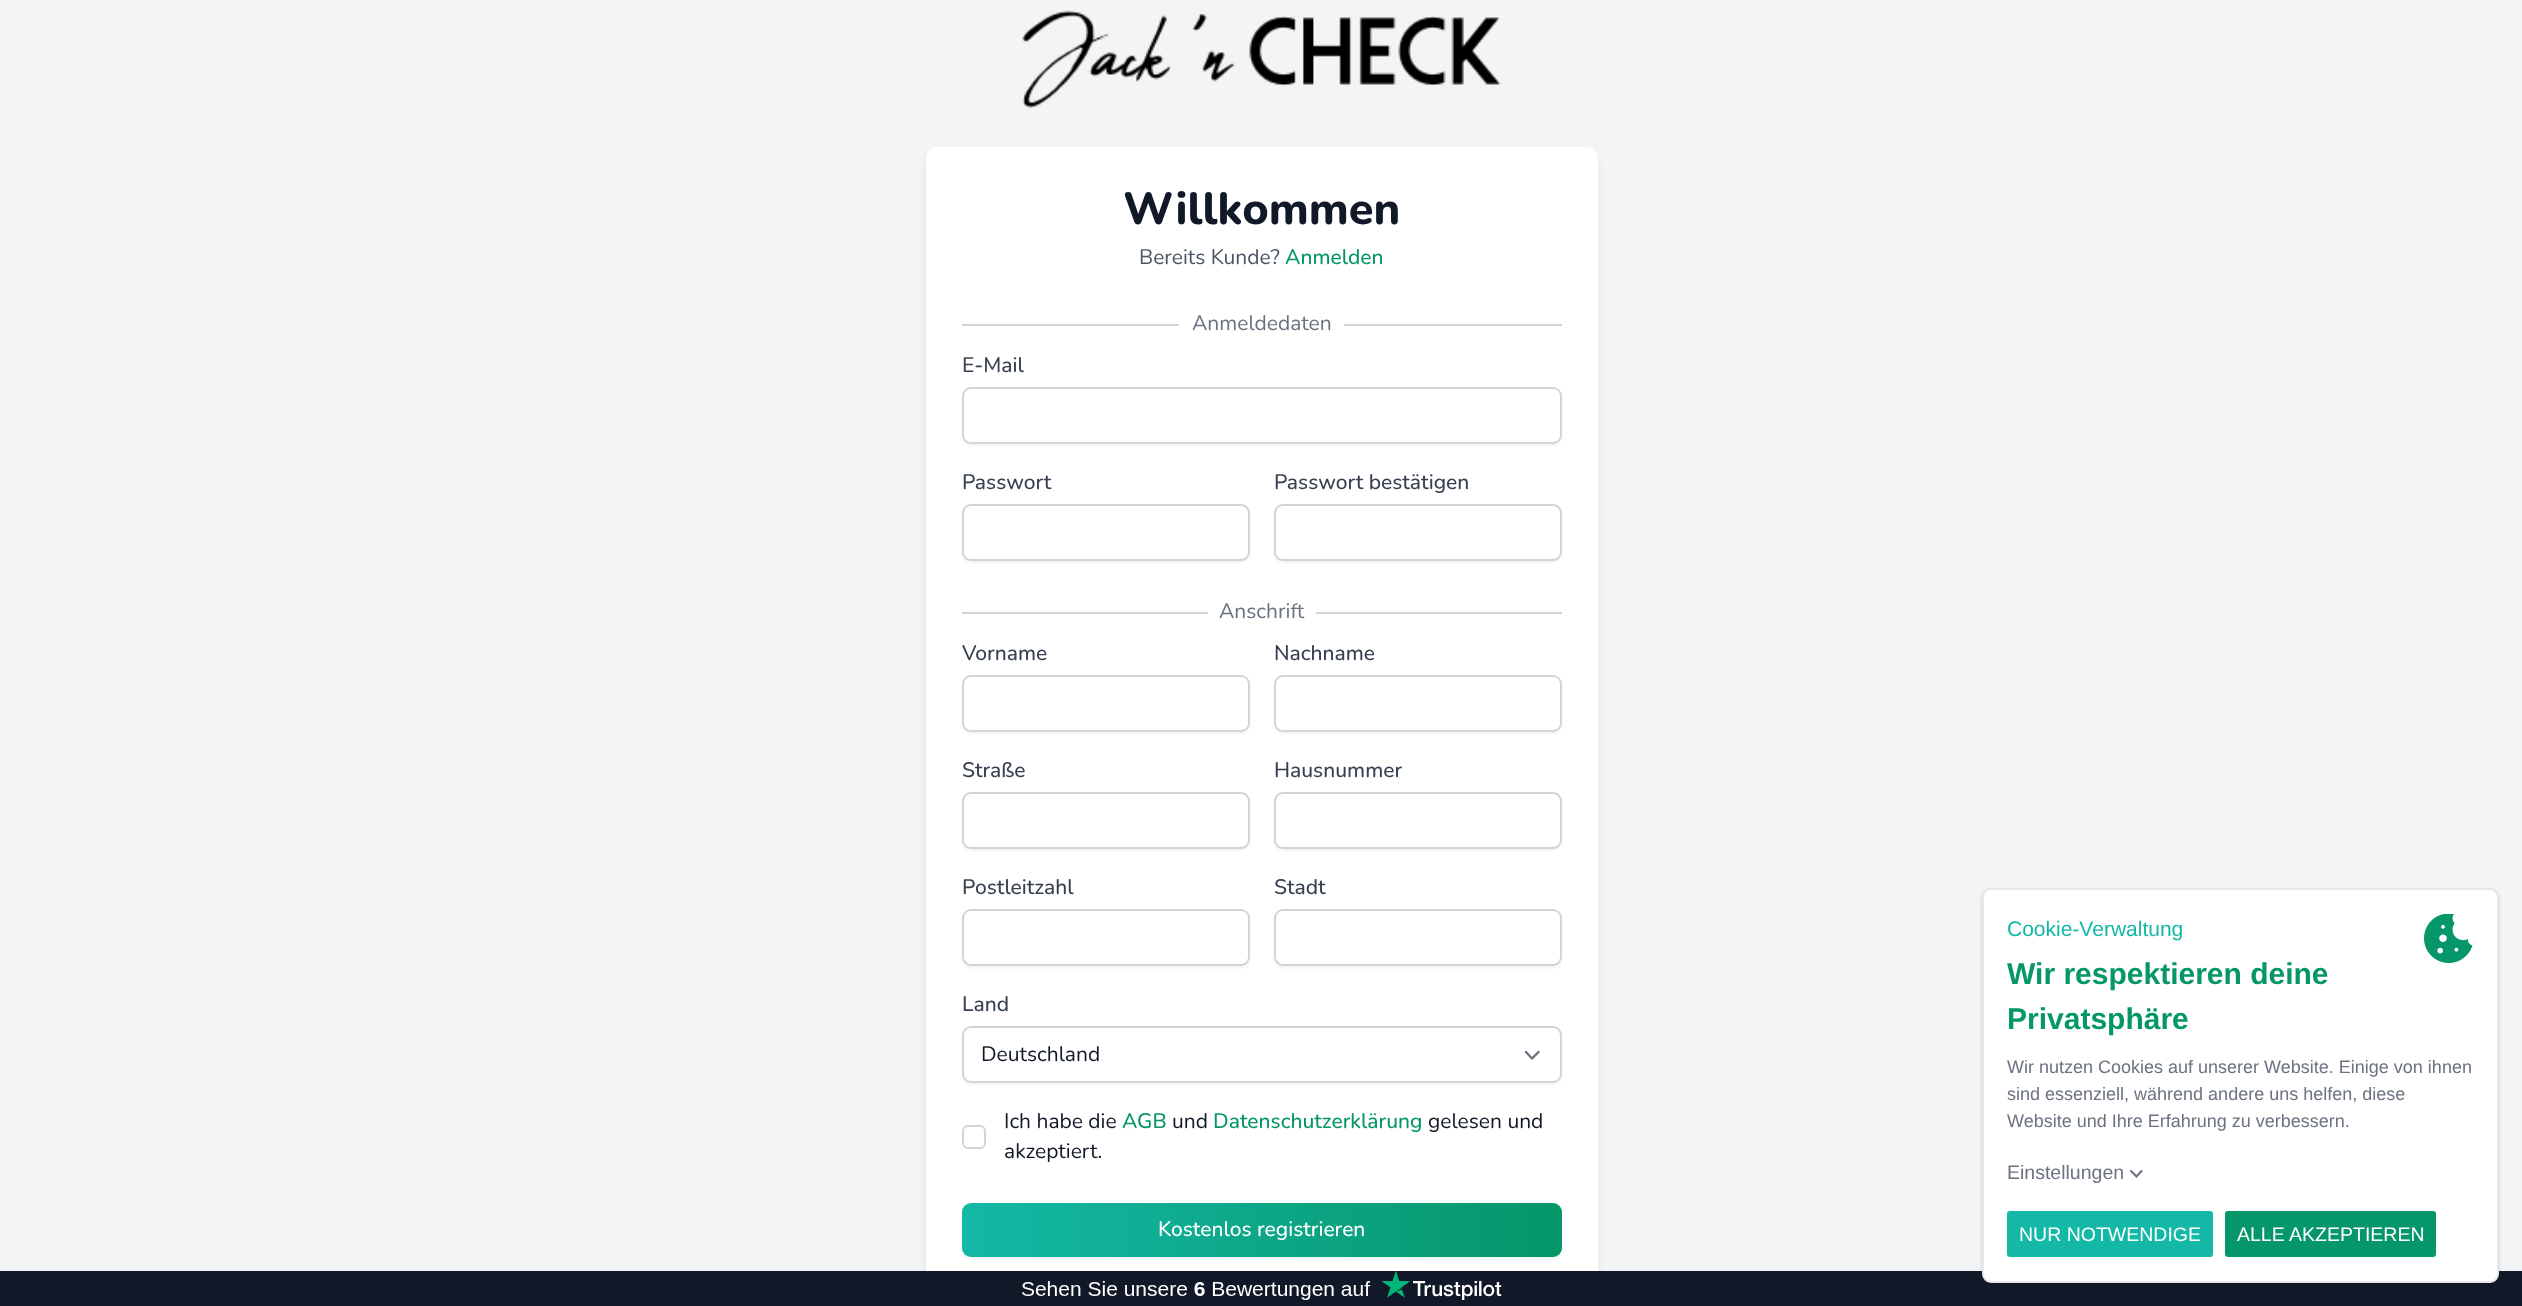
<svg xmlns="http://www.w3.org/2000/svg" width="2522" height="1306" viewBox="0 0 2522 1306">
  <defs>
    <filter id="blur1" x="-50%" y="-200%" width="200%" height="500%"><feGaussianBlur stdDeviation="4.5"/></filter>
    <filter id="blur2" x="-50%" y="-200%" width="200%" height="500%"><feGaussianBlur stdDeviation="1.5"/></filter>
    <linearGradient id="g1" gradientUnits="userSpaceOnUse" x1="962" y1="1230" x2="1562" y2="1230"><stop offset="0" stop-color="#14b8a6"/><stop offset="1" stop-color="#059669"/></linearGradient>
    <filter id="blur3" x="-50%" y="-200%" width="200%" height="500%"><feGaussianBlur stdDeviation="2"/></filter>
  </defs>
  <rect width="100%" height="100%" fill="#f3f4f6"/>
  <image x="1022" y="10" width="479" height="98" href="img1.png"/>
  <rect x="927" y="155" width="669" height="1131" rx="11" fill="#000000" fill-opacity="0.1" filter="url(#blur1)"/>
  <rect x="926" y="147" width="672" height="1134" rx="12" fill="#ffffff"/>
  <text x="1123" y="224" font-family="Nunito" font-size="45" font-weight="800" fill="#111827">Willkommen</text>
  <text x="1139" y="264" font-family="Nunito" font-size="21" fill="#4b5563">Bereits Kunde?</text>
  <text x="1285" y="264" font-family="Nunito" font-size="21" font-weight="500" fill="#059669">Anmelden</text>
  <rect x="962" y="324" width="600" height="2" fill="#d1d5db"/>
  <rect x="1179" y="324" width="165" height="2" fill="#ffffff"/>
  <text x="1192" y="330" font-family="Nunito" font-size="21" fill="#6b7280">Anmeldedaten</text>
  <text x="962" y="372" font-family="Nunito" font-size="21" font-weight="500" fill="#374151">E-Mail</text>
  <rect x="962" y="389" width="600" height="57" rx="9" fill="#000000" fill-opacity="0.05" filter="url(#blur2)"/>
  <rect x="963" y="388" width="598" height="55" rx="8" fill="#ffffff" stroke="#d1d5db" stroke-width="2"/>
  <text x="962" y="489" font-family="Nunito" font-size="21" font-weight="500" fill="#374151">Passwort</text>
  <rect x="962" y="506" width="288" height="57" rx="9" fill="#000000" fill-opacity="0.05" filter="url(#blur2)"/>
  <rect x="963" y="505" width="286" height="55" rx="8" fill="#ffffff" stroke="#d1d5db" stroke-width="2"/>
  <text x="1274" y="489" font-family="Nunito" font-size="21" font-weight="500" fill="#374151">Passwort bestätigen</text>
  <rect x="1274" y="506" width="288" height="57" rx="9" fill="#000000" fill-opacity="0.05" filter="url(#blur2)"/>
  <rect x="1275" y="505" width="286" height="55" rx="8" fill="#ffffff" stroke="#d1d5db" stroke-width="2"/>
  <rect x="962" y="612" width="600" height="2" fill="#d1d5db"/>
  <rect x="1208" y="612" width="108" height="2" fill="#ffffff"/>
  <text x="1219" y="618" font-family="Nunito" font-size="21" fill="#6b7280">Anschrift</text>
  <text x="962" y="660" font-family="Nunito" font-size="21" font-weight="500" fill="#374151">Vorname</text>
  <rect x="962" y="677" width="288" height="57" rx="9" fill="#000000" fill-opacity="0.05" filter="url(#blur2)"/>
  <rect x="963" y="676" width="286" height="55" rx="8" fill="#ffffff" stroke="#d1d5db" stroke-width="2"/>
  <text x="1274" y="660" font-family="Nunito" font-size="21" font-weight="500" fill="#374151">Nachname</text>
  <rect x="1274" y="677" width="288" height="57" rx="9" fill="#000000" fill-opacity="0.05" filter="url(#blur2)"/>
  <rect x="1275" y="676" width="286" height="55" rx="8" fill="#ffffff" stroke="#d1d5db" stroke-width="2"/>
  <text x="962" y="777" font-family="Nunito" font-size="21" font-weight="500" fill="#374151">Straße</text>
  <rect x="962" y="794" width="288" height="57" rx="9" fill="#000000" fill-opacity="0.05" filter="url(#blur2)"/>
  <rect x="963" y="793" width="286" height="55" rx="8" fill="#ffffff" stroke="#d1d5db" stroke-width="2"/>
  <text x="1274" y="777" font-family="Nunito" font-size="21" font-weight="500" fill="#374151">Hausnummer</text>
  <rect x="1274" y="794" width="288" height="57" rx="9" fill="#000000" fill-opacity="0.05" filter="url(#blur2)"/>
  <rect x="1275" y="793" width="286" height="55" rx="8" fill="#ffffff" stroke="#d1d5db" stroke-width="2"/>
  <text x="962" y="894" font-family="Nunito" font-size="21" font-weight="500" fill="#374151">Postleitzahl</text>
  <rect x="962" y="911" width="288" height="57" rx="9" fill="#000000" fill-opacity="0.05" filter="url(#blur2)"/>
  <rect x="963" y="910" width="286" height="55" rx="8" fill="#ffffff" stroke="#d1d5db" stroke-width="2"/>
  <text x="1274" y="894" font-family="Nunito" font-size="21" font-weight="500" fill="#374151">Stadt</text>
  <rect x="1274" y="911" width="288" height="57" rx="9" fill="#000000" fill-opacity="0.05" filter="url(#blur2)"/>
  <rect x="1275" y="910" width="286" height="55" rx="8" fill="#ffffff" stroke="#d1d5db" stroke-width="2"/>
  <text x="962" y="1011" font-family="Nunito" font-size="21" font-weight="500" fill="#374151">Land</text>
  <rect x="962" y="1028" width="600" height="57" rx="9" fill="#000000" fill-opacity="0.05" filter="url(#blur2)"/>
  <rect x="962" y="1026" width="600" height="57" rx="9" fill="#ffffff"/>
  <path d="M1526 1052L1532 1058.5L1538.5 1052" fill="none" stroke="#6b7280" stroke-width="2.4" stroke-linecap="round" stroke-linejoin="round"/>
  <rect x="963" y="1027" width="598" height="55" rx="8" fill="none" stroke="#d1d5db" stroke-width="2"/>
  <text x="981" y="1061" font-family="Nunito" font-size="21" fill="#111827">Deutschland</text>
  <rect x="963" y="1126" width="22" height="22" rx="5" fill="none" stroke="#d1d5db" stroke-width="2"/>
  <text x="1004" y="1128" font-family="Nunito" font-size="21" fill="#111827">Ich habe die</text>
  <text x="1122" y="1128" font-family="Nunito" font-size="21" font-weight="500" fill="#059669">AGB</text>
  <text x="1172" y="1128" font-family="Nunito" font-size="21" fill="#111827">und</text>
  <text x="1213" y="1128" font-family="Nunito" font-size="21" font-weight="500" fill="#059669">Datenschutzerklärung</text>
  <text x="1428" y="1128" font-family="Nunito" font-size="21" fill="#111827">gelesen und</text>
  <text x="1004" y="1158" font-family="Nunito" font-size="21" fill="#111827">akzeptiert.</text>
  <rect x="962" y="1205" width="600" height="54" rx="9" fill="#000000" fill-opacity="0.05" filter="url(#blur2)"/>
  <rect x="962" y="1203" width="600" height="54" rx="9" fill="url(#g1)"/>
  <text x="1158" y="1236" font-family="Nunito" font-size="21" font-weight="500" fill="#ffffff">Kostenlos registrieren</text>
  <rect x="0" y="1271" width="2522" height="35" fill="#111827"/>
  <rect x="1982" y="890" width="517" height="394" rx="9" fill="#000000" fill-opacity="0.06" filter="url(#blur2)"/>
  <rect x="1982" y="890" width="517" height="394" rx="9" fill="#000000" fill-opacity="0.1" filter="url(#blur3)"/>
  <rect x="1983" y="889" width="515" height="393" rx="8" fill="#ffffff" stroke="#e5e7eb" stroke-width="2"/>
  <text x="2007" y="936" font-family="Liberation Sans" font-size="21" fill="#14b8a6">Cookie-Verwaltung</text>
  <text x="2007" y="984" font-family="Liberation Sans" font-size="30" font-weight="bold" fill="#059669">Wir respektieren deine</text>
  <text x="2007" y="1029" font-family="Liberation Sans" font-size="30" font-weight="bold" fill="#059669">Privatsphäre</text>
  <image x="2424" y="914" width="49" height="49" href="img2.png"/>
  <text x="2007" y="1073" font-family="Liberation Sans" font-size="18" fill="#6b7280">Wir nutzen Cookies auf unserer Website. Einige von ihnen</text>
  <text x="2007" y="1100" font-family="Liberation Sans" font-size="18" fill="#6b7280">sind essenziell, während andere uns helfen, diese</text>
  <text x="2007" y="1127" font-family="Liberation Sans" font-size="18" fill="#6b7280">Website und Ihre Erfahrung zu verbessern.</text>
  <text x="2007" y="1179" font-family="Liberation Sans" font-size="19.5" fill="#6b7280">Einstellungen</text>
  <path d="M2131 1171L2136.5 1176.5L2141.5 1171" fill="none" stroke="#6b7280" stroke-width="2.1" stroke-linecap="round"/>
  <rect x="2007" y="1211" width="206" height="46" rx="3" fill="#14b8a6"/>
  <text x="2019" y="1241" font-family="Liberation Sans" font-size="19.5" fill="#ffffff">NUR NOTWENDIGE</text>
  <rect x="2225" y="1211" width="211" height="46" rx="3" fill="#059669"/>
  <text x="2237" y="1241" font-family="Liberation Sans" font-size="19.5" fill="#ffffff">ALLE AKZEPTIEREN</text>
  <image x="1022" y="1271" width="480" height="29" href="img3.png"/>
</svg>
